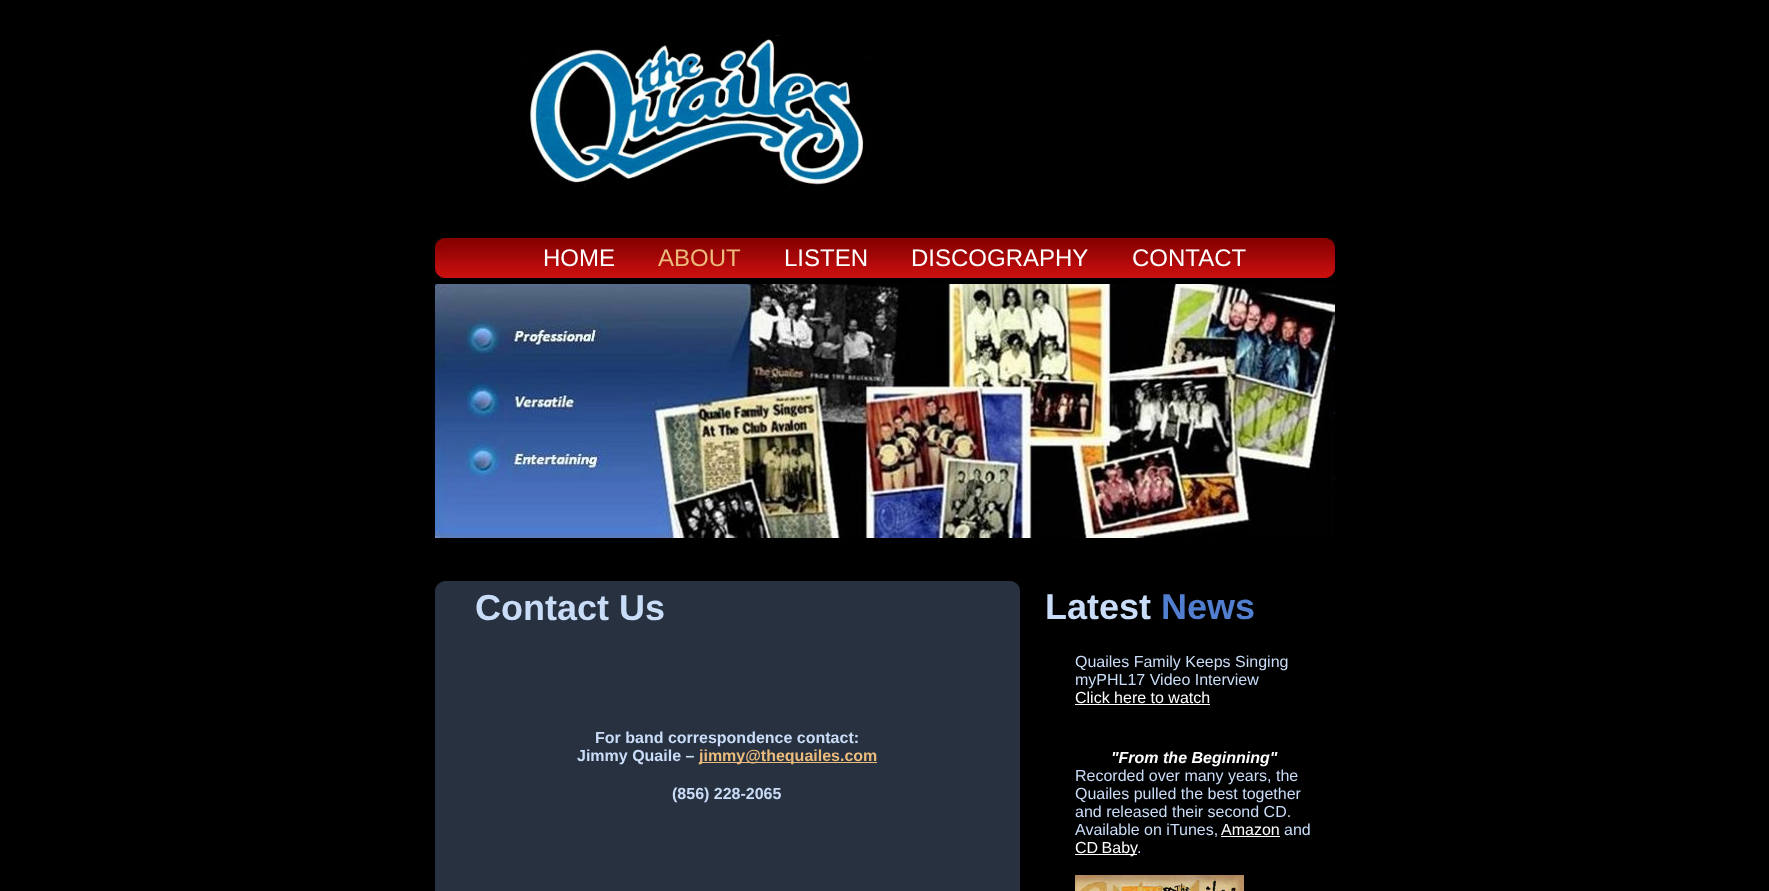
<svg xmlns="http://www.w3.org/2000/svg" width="1769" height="891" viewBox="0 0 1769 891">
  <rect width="100%" height="100%" fill="#000000"/>
  <image x="525" y="35" width="345" height="152" href="img1.png"/>
  <image x="435" y="238" width="900" height="40" href="img2.png"/>
  <text x="543" y="266" font-family="Liberation Sans" font-size="24" fill="#ffffff">HOME</text>
  <text x="658" y="266" font-family="Liberation Sans" font-size="24" fill="#ecbc7c">ABOUT</text>
  <text x="784" y="266" font-family="Liberation Sans" font-size="24" fill="#ffffff">LISTEN</text>
  <text x="911" y="266" font-family="Liberation Sans" font-size="24" fill="#ffffff">DISCOGRAPHY</text>
  <text x="1132" y="266" font-family="Liberation Sans" font-size="24" fill="#ffffff">CONTACT</text>
  <image x="435" y="284" width="900" height="254" href="img3.png"/>
  <rect x="435" y="581" width="585" height="310" fill="#283140"/>
  <image x="435" y="581" width="10" height="9" href="img4.png"/>
  <image x="1011" y="581" width="9" height="9" href="img5.png"/>
  <text x="475" y="620" font-family="Liberation Sans" font-size="36" font-weight="bold" fill="#caddf8">Contact Us</text>
  <text x="595" y="743" font-family="Liberation Sans" font-size="16" font-weight="bold" fill="#caddf8">For band correspondence contact:</text>
  <text x="577" y="761" font-family="Liberation Sans" font-size="16" font-weight="bold" fill="#caddf8">Jimmy Quaile –</text>
  <rect x="699" y="762" width="178" height="1" fill="#ecbc7c"/>
  <text x="699" y="761" font-family="Liberation Sans" font-size="16" font-weight="bold" fill="#ecbc7c">jimmy@thequailes.com</text>
  <text x="672" y="799" font-family="Liberation Sans" font-size="16" font-weight="bold" fill="#caddf8">(856) 228-2065</text>
  <text x="1045" y="619" font-family="Liberation Sans" font-size="36" font-weight="bold" fill="#caddf8">Latest</text>
  <text x="1161" y="619" font-family="Liberation Sans" font-size="36" font-weight="bold" fill="#527ecf">News</text>
  <text x="1075" y="667" font-family="Liberation Sans" font-size="16" fill="#caddf8">Quailes Family Keeps Singing</text>
  <text x="1075" y="685" font-family="Liberation Sans" font-size="16" fill="#caddf8">myPHL17 Video Interview</text>
  <text x="1075" y="703" font-family="Liberation Sans" font-size="16" fill="#ffffff">Click here to watch</text>
  <rect x="1075" y="704" width="135" height="1" fill="#ffffff"/>
  <text x="1111" y="763" font-family="Liberation Sans" font-size="16" font-weight="bold" font-style="italic" fill="#ffffff">"From the Beginning"</text>
  <text x="1075" y="781" font-family="Liberation Sans" font-size="16" fill="#caddf8">Recorded over many years, the</text>
  <text x="1075" y="799" font-family="Liberation Sans" font-size="16" fill="#caddf8">Quailes pulled the best together</text>
  <text x="1075" y="817" font-family="Liberation Sans" font-size="16" fill="#caddf8">and released their second CD.</text>
  <text x="1075" y="835" font-family="Liberation Sans" font-size="16" fill="#caddf8">Available on iTunes,</text>
  <text x="1221" y="835" font-family="Liberation Sans" font-size="16" fill="#ffffff">Amazon</text>
  <rect x="1221" y="836" width="59" height="1" fill="#ffffff"/>
  <text x="1284" y="835" font-family="Liberation Sans" font-size="16" fill="#caddf8">and</text>
  <rect x="1075" y="854" width="62" height="1" fill="#ffffff"/>
  <text x="1075" y="853" word-spacing="-1" font-family="Liberation Sans" font-size="16" fill="#ffffff">CD Baby</text>
  <text x="1137" y="853" font-family="Liberation Sans" font-size="16" fill="#caddf8">.</text>
  <image x="1075" y="875" width="169" height="16" href="img6.png"/>
</svg>
